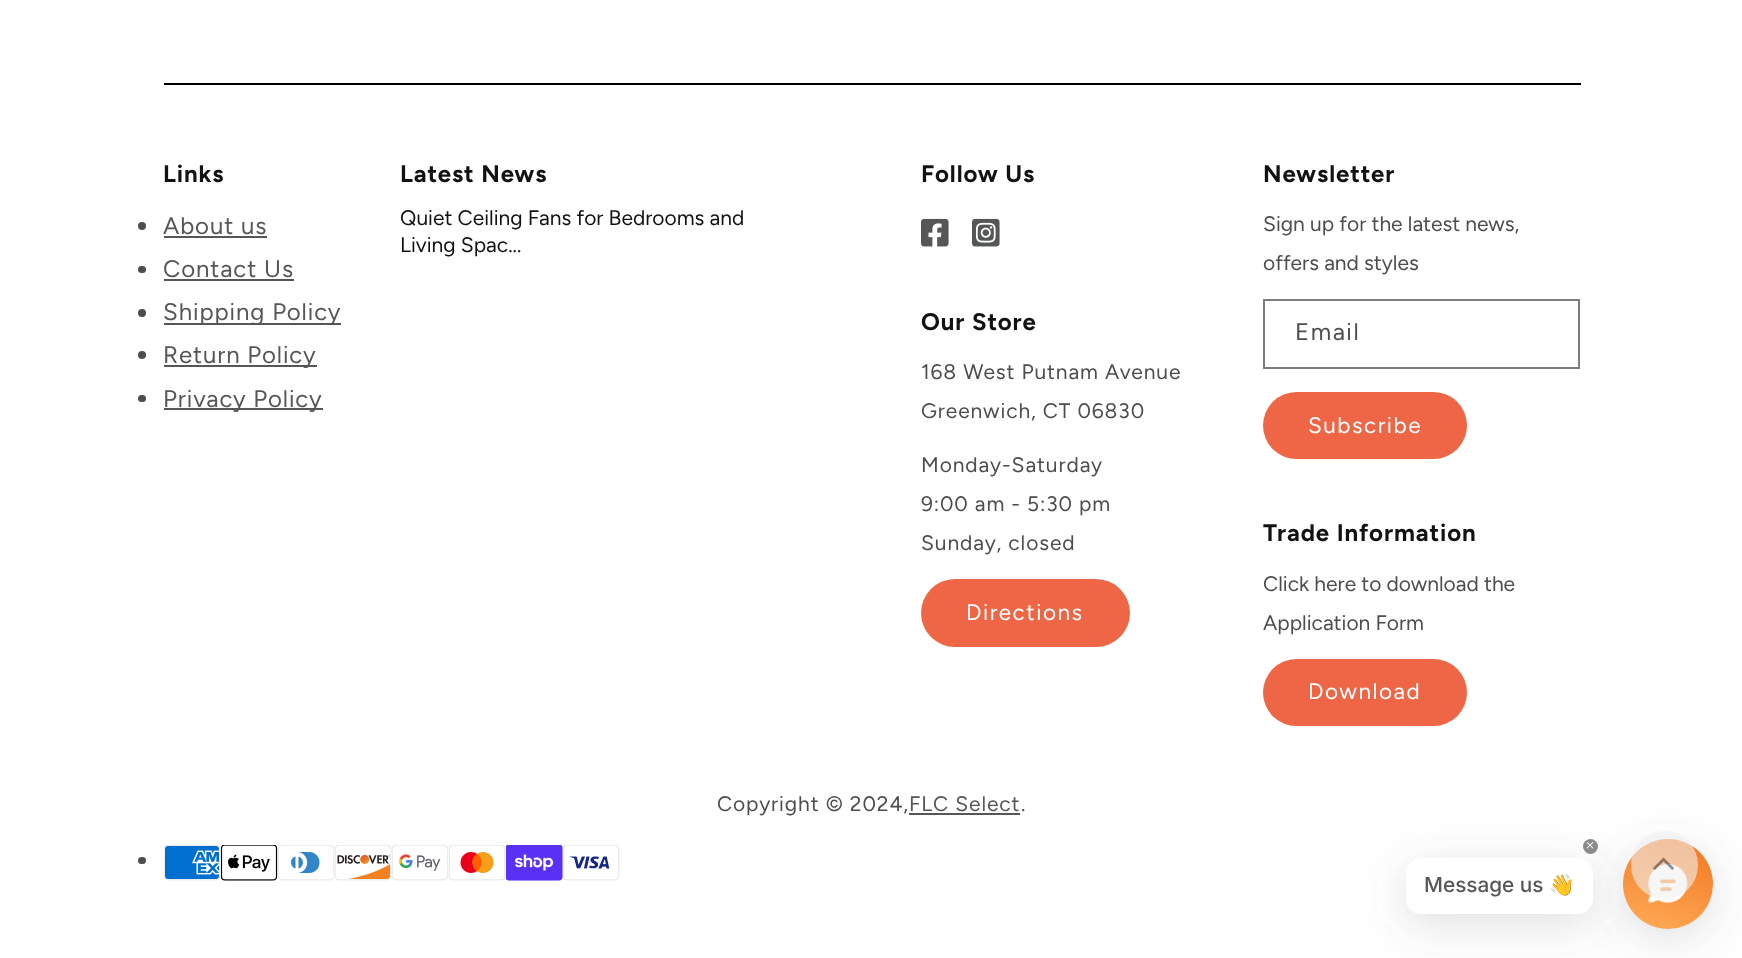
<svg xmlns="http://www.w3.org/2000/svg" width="1742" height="958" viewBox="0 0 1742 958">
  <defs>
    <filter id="blur1" x="-50%" y="-200%" width="200%" height="500%"><feGaussianBlur stdDeviation="22"/></filter>
    <linearGradient id="g1" gradientUnits="userSpaceOnUse" x1="1687" y1="829" x2="1649" y2="938"><stop offset="0" stop-color="#f27521"/><stop offset="1" stop-color="#ffac58"/></linearGradient>
  </defs>
  <rect width="100%" height="100%" fill="#ffffff"/>
  <rect x="164" y="83" width="1417" height="2" fill="#000000"/>
  <text x="163" y="182" font-family="Figtree" font-size="24" font-weight="bold" letter-spacing="0.9" fill="#121212">Links</text>
  <circle cx="142" cy="226" r="4" fill="#4d4d4d"/>
  <text x="163" y="234" font-family="Figtree" font-size="24" letter-spacing="0.9" fill="#545657">About us</text>
  <rect x="164" y="236" width="103" height="2" fill="#545657"/>
  <rect x="138" y="266" width="8" height="7" rx="3.5" fill="#4d4d4d"/>
  <text x="163" y="277" font-family="Figtree" font-size="24" letter-spacing="0.9" fill="#545657">Contact Us</text>
  <rect x="164" y="279" width="130" height="2" fill="#545657"/>
  <circle cx="142" cy="313" r="4" fill="#4d4d4d"/>
  <rect x="164" y="323" width="177" height="2" fill="#545657"/>
  <text x="163" y="320" font-family="Figtree" font-size="24" letter-spacing="0.9" fill="#545657">Shipping Policy</text>
  <circle cx="142" cy="355" r="4" fill="#4d4d4d"/>
  <rect x="164" y="365" width="153" height="2" fill="#545657"/>
  <text x="163" y="363" font-family="Figtree" font-size="24" letter-spacing="0.9" fill="#545657">Return Policy</text>
  <rect x="138" y="395" width="8" height="7" rx="3.5" fill="#4d4d4d"/>
  <rect x="164" y="408" width="159" height="2" fill="#545657"/>
  <text x="163" y="407" font-family="Figtree" font-size="24" letter-spacing="0.9" fill="#545657">Privacy Policy</text>
  <text x="400" y="182" font-family="Figtree" font-size="24" font-weight="bold" letter-spacing="0.9" fill="#121212">Latest News</text>
  <text x="400" y="225" font-family="Figtree" font-size="21" fill="#121212">Quiet Ceiling Fans for Bedrooms and</text>
  <text x="400" y="252" font-family="Figtree" font-size="21" fill="#121212">Living Spac...</text>
  <text x="921" y="182" font-family="Figtree" font-size="24" font-weight="bold" letter-spacing="0.9" fill="#121212">Follow Us</text>
  <image x="921" y="218" width="28" height="29" href="img1.png"/>
  <image x="972" y="218" width="28" height="29" href="img2.png"/>
  <text x="921" y="330" font-family="Figtree" font-size="24" font-weight="bold" letter-spacing="0.9" fill="#121212">Our Store</text>
  <text x="921" y="379" font-family="Figtree" font-size="21" letter-spacing="0.9" fill="#4d4d4d">168 West Putnam Avenue</text>
  <text x="921" y="418" font-family="Figtree" font-size="21" letter-spacing="0.9" fill="#4d4d4d">Greenwich, CT 06830</text>
  <text x="921" y="472" font-family="Figtree" font-size="21" letter-spacing="0.9" fill="#4d4d4d">Monday-Saturday</text>
  <text x="921" y="511" font-family="Figtree" font-size="21" letter-spacing="0.9" fill="#4d4d4d">9:00 am - 5:30 pm</text>
  <text x="921" y="550" font-family="Figtree" font-size="21" letter-spacing="0.9" fill="#4d4d4d">Sunday, closed</text>
  <rect x="921" y="579" width="209" height="68" rx="34" fill="#ee6645"/>
  <text x="966" y="620" font-family="Figtree" font-size="22.5" letter-spacing="1.5" fill="#ffffff">Directions</text>
  <text x="1263" y="182" font-family="Figtree" font-size="24" font-weight="bold" letter-spacing="0.9" fill="#121212">Newsletter</text>
  <text x="1263" y="231" font-family="Figtree" font-size="21" fill="#4d4d4d">Sign up for the latest news,</text>
  <text x="1263" y="270" font-family="Figtree" font-size="21" fill="#4d4d4d">offers and styles</text>
  <rect x="1264" y="300" width="315" height="68" fill="none" stroke="#7d7d7d" stroke-width="2"/>
  <text x="1295" y="340" font-family="Figtree" font-size="24" letter-spacing="1.5" fill="#4d4d4d">Email</text>
  <rect x="1263" y="392" width="204" height="67" rx="33.5" fill="#ee6645"/>
  <text x="1308" y="433" font-family="Figtree" font-size="22.5" letter-spacing="1.5" fill="#ffffff">Subscribe</text>
  <text x="1263" y="541" font-family="Figtree" font-size="24" font-weight="bold" letter-spacing="0.9" fill="#121212">Trade Information</text>
  <text x="1263" y="591" font-family="Figtree" font-size="21" fill="#4d4d4d">Click here to download the</text>
  <text x="1263" y="630" font-family="Figtree" font-size="21" fill="#4d4d4d">Application Form</text>
  <rect x="1263" y="659" width="204" height="67" rx="33.5" fill="#ee6645"/>
  <text x="1308" y="699" font-family="Figtree" font-size="22.5" letter-spacing="1.5" fill="#ffffff">Download</text>
  <text x="717" y="811" font-family="Figtree" font-size="21" letter-spacing="0.9" fill="#4d4d4d">Copyright © 2024,</text>
  <text x="909" y="811" font-family="Figtree" font-size="21" letter-spacing="0.9" fill="#545657">FLC Select</text>
  <rect x="909" y="813" width="111" height="2" fill="#545657"/>
  <text x="1021" y="811" font-family="Figtree" font-size="21" letter-spacing="0.9" fill="#4d4d4d">.</text>
  <rect x="138" y="857" width="8" height="7" rx="3.5" fill="#4d4d4d"/>
  <image x="164" y="845" width="57" height="36" href="img3.png"/>
  <image x="221" y="845" width="57" height="36" href="img4.png"/>
  <image x="278" y="845" width="57" height="36" href="img5.png"/>
  <image x="335" y="845" width="57" height="36" href="img6.png"/>
  <image x="392" y="845" width="57" height="36" href="img7.png"/>
  <image x="449" y="845" width="57" height="36" href="img8.png"/>
  <image x="506" y="845" width="57" height="36" href="img9.png"/>
  <image x="563" y="845" width="57" height="36" href="img10.png"/>
  <rect x="1623" y="849" width="90" height="90" rx="45" fill="#64646f" fill-opacity="0.2" filter="url(#blur1)"/>
  <circle cx="1668" cy="884" r="45" fill="url(#g1)"/>
  <image x="1648" y="864" width="40" height="39" href="img12.png"/>
  <rect x="1406" y="869" width="187" height="55" rx="15" fill="#64646f" fill-opacity="0.2" filter="url(#blur1)"/>
  <rect x="1406" y="858" width="187" height="56" rx="15" fill="#ffffff"/>
  <circle cx="1590.5" cy="846.5" r="7.5" fill="#303030" fill-opacity="0.55"/>
  <image x="1586" y="842" width="8" height="7" href="img11.png"/>
  <text x="1424" y="892" font-family="Inter" font-size="20.75" font-weight="500" fill="#545657">Message us</text>
  <text x="1549" y="892" font-family="Noto Color Emoji" font-size="20.75" fill="#545657">👋</text>
  <rect x="1631" y="831" width="67" height="68" rx="33.5" fill="#f0f0f0" fill-opacity="0.6"/>
  <image x="1653" y="857" width="21" height="13" href="img13.png"/>
</svg>
